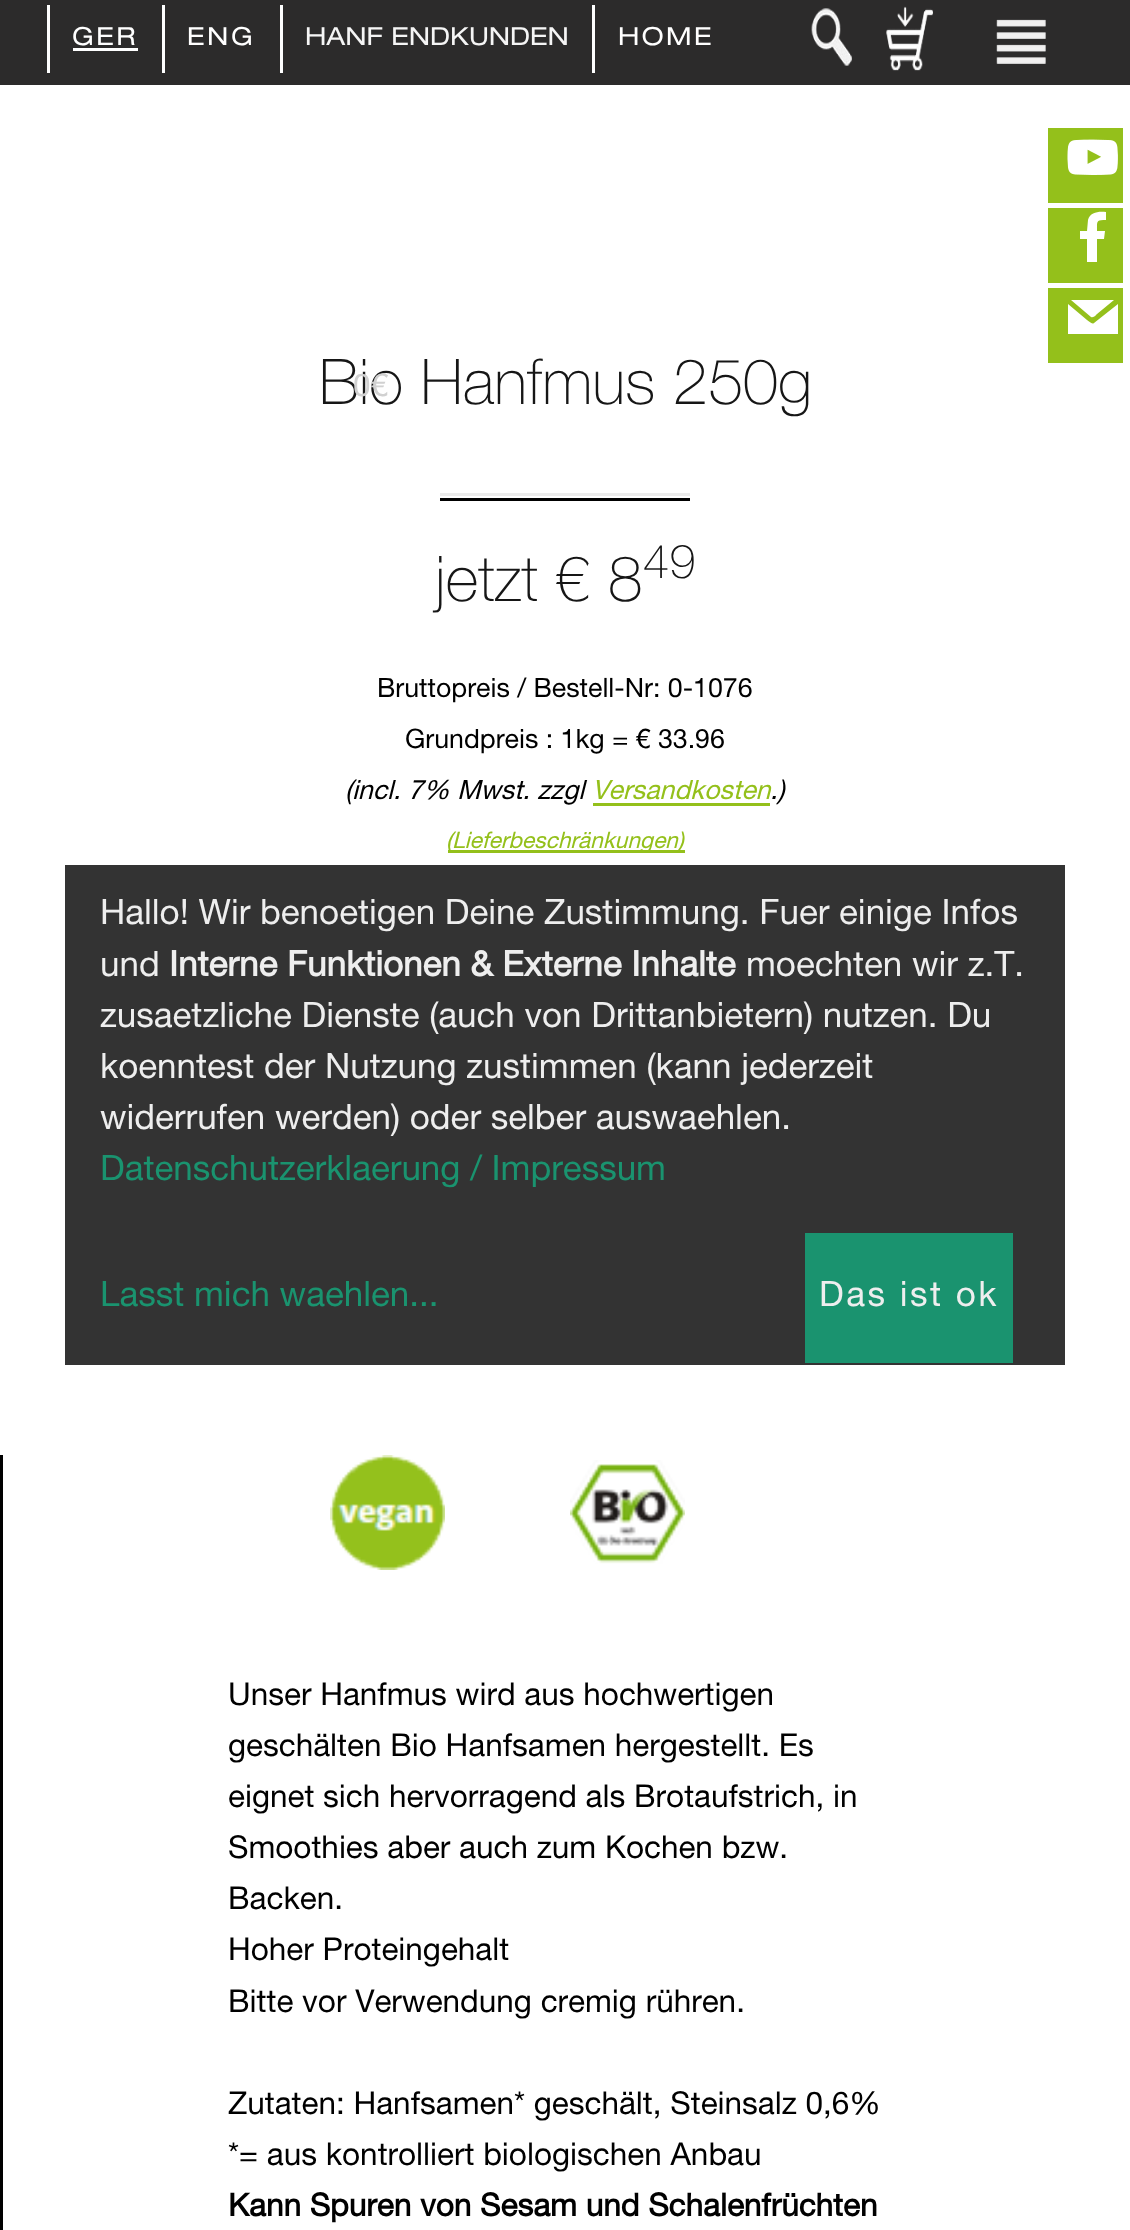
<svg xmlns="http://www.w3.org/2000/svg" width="1130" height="2230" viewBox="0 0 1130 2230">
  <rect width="100%" height="100%" fill="#ffffff"/>
  <rect x="0" y="0" width="1130" height="85" fill="#2c2b2b"/>
  <rect x="47" y="5" width="3" height="68" fill="#ffffff"/>
  <text x="72" y="45" font-family="Helvetica Neue" font-size="25" letter-spacing="2.5" fill="#ffffff">GER</text>
  <rect x="73" y="48" width="65" height="3" fill="#ffffff"/>
  <rect x="162" y="5" width="3" height="68" fill="#ffffff"/>
  <text x="187" y="45" font-family="Helvetica Neue" font-size="25" letter-spacing="2.5" fill="#ffffff">ENG</text>
  <rect x="280" y="5" width="3" height="68" fill="#ffffff"/>
  <text x="305" y="45" font-family="Helvetica Neue" font-size="25" fill="#f5f5f5">HANF ENDKUNDEN</text>
  <rect x="592" y="5" width="3" height="68" fill="#ffffff"/>
  <text x="618" y="45" font-family="Helvetica Neue" font-size="25" letter-spacing="2.5" fill="#ffffff">HOME</text>
  <image x="811" y="8" width="41" height="58" href="img1.png"/>
  <image x="886" y="6" width="47" height="65" href="img2.png"/>
  <image x="996" y="19" width="50" height="45" href="img3.png"/>
  <rect x="1048" y="128" width="75" height="75" fill="#94c01b"/>
  <image x="1067" y="139" width="51" height="36" href="img4.png"/>
  <rect x="1048" y="208" width="75" height="75" fill="#94c01b"/>
  <path d="M1097 262V239H1104L1105 231H1097C1097 221 1096 220 1106 220V212C1099 211 1090 212 1088 220L1087 231H1080V239H1087V262Z" fill="#ffffff"/>
  <rect x="1048" y="288" width="75" height="75" fill="#94c01b"/>
  <path d="M1094 323C1092 325 1089 321 1087 320L1068 304V334H1118V304ZM1091 317C1094 318 1096 315 1097 314L1114 300H1071Z" fill="#ffffff"/>
  <text x="319" y="404" font-family="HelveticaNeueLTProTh" font-size="63" fill="#161616">Bio Hanfmus 250g</text>
  <rect x="440" y="493" width="250" height="3" fill="#ebebeb"/>
  <rect x="440" y="498" width="250" height="3" fill="#000000"/>
  <text x="435" y="601" font-family="HelveticaNeueLTProTh" font-size="63" fill="#161616">jetzt € 8</text>
  <text x="643" y="578" font-family="HelveticaNeueLTProTh" font-size="47" fill="#161616">49</text>
  <text x="377" y="697" font-family="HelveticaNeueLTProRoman" font-size="26.75" fill="#000000">Bruttopreis / Bestell-Nr: 0-1076</text>
  <text x="405" y="748" font-family="HelveticaNeueLTProRoman" font-size="26.75" fill="#000000">Grundpreis : 1kg = € 33.96</text>
  <text x="345" y="799" font-family="HelveticaNeueLTProRoman" font-size="26.75" font-style="italic" fill="#000000">(incl. 7% Mwst. zzgl</text>
  <text x="592" y="799" font-family="HelveticaNeueLTProRoman" font-size="26.75" font-style="italic" fill="#94c01b">Versandkosten</text>
  <text x="770" y="799" font-family="HelveticaNeueLTProRoman" font-size="26.75" font-style="italic" fill="#000000">.)</text>
  <rect x="593" y="803" width="177" height="3" fill="#94c01b"/>
  <rect x="448" y="850" width="237" height="3" fill="#94c01b"/>
  <text x="446" y="848" font-family="HelveticaNeueLTProRoman" font-size="22.75" font-style="italic" fill="#94c01b">(Lieferbeschränkungen)</text>
  <rect x="0" y="1455" width="3" height="775" fill="#000000"/>
  <image x="330" y="1455" width="115" height="115" href="img5.png"/>
  <image x="570" y="1460" width="115" height="104" href="img6.png"/>
  <text x="228" y="1705" font-family="HelveticaNeueLTProRoman" font-size="31.5" fill="#000000">Unser Hanfmus wird aus hochwertigen</text>
  <text x="228" y="1756" font-family="HelveticaNeueLTProRoman" font-size="31.5" fill="#000000">geschälten Bio Hanfsamen hergestellt. Es</text>
  <text x="228" y="1807" font-family="HelveticaNeueLTProRoman" font-size="31.5" fill="#000000">eignet sich hervorragend als Brotaufstrich, in</text>
  <text x="228" y="1858" font-family="HelveticaNeueLTProRoman" font-size="31.5" fill="#000000">Smoothies aber auch zum Kochen bzw.</text>
  <text x="228" y="1909" font-family="HelveticaNeueLTProRoman" font-size="31.5" fill="#000000">Backen.</text>
  <text x="228" y="1960" font-family="HelveticaNeueLTProRoman" font-size="31.5" fill="#000000">Hoher Proteingehalt</text>
  <text x="228" y="2012" font-family="HelveticaNeueLTProRoman" font-size="31.5" fill="#000000">Bitte vor Verwendung cremig rühren.</text>
  <text x="228" y="2114" font-family="HelveticaNeueLTProRoman" font-size="31.5" fill="#000000">Zutaten: Hanfsamen* geschält, Steinsalz 0,6%</text>
  <text x="228" y="2165" font-family="HelveticaNeueLTProRoman" font-size="31.5" fill="#000000">*= aus kontrolliert biologischen Anbau</text>
  <text x="228" y="2216" font-family="HelveticaNeueLTProRoman" font-size="31.5" font-weight="bold" fill="#000000">Kann Spuren von Sesam und Schalenfrüchten</text>
  <image x="997" y="19" width="49" height="45" href="img7.png"/>
  <text x="353" y="396" font-family="HelveticaNeueLTProRoman" font-size="31.5" fill="#d1d1d1">0€</text>
  <rect x="65" y="865" width="1000" height="500" fill="#333333"/>
  <text x="100" y="924" font-family="HelveticaNeueLTProRoman" font-size="35" fill="#eeeeee">Hallo! Wir benoetigen Deine Zustimmung. Fuer einige Infos</text>
  <text x="100" y="976" font-family="HelveticaNeueLTProRoman" font-size="35" fill="#eeeeee">und</text>
  <text x="169" y="976" font-family="HelveticaNeueLTProRoman" font-size="35" font-weight="bold" fill="#eeeeee">Interne Funktionen &amp; Externe Inhalte</text>
  <text x="746" y="976" font-family="HelveticaNeueLTProRoman" font-size="35" fill="#eeeeee">moechten wir z.T.</text>
  <text x="100" y="1027" font-family="HelveticaNeueLTProRoman" font-size="35" fill="#eeeeee">zusaetzliche Dienste (auch von Drittanbietern) nutzen. Du</text>
  <text x="100" y="1078" font-family="HelveticaNeueLTProRoman" font-size="35" fill="#eeeeee">koenntest der Nutzung zustimmen (kann jederzeit</text>
  <text x="100" y="1129" font-family="HelveticaNeueLTProRoman" font-size="35" fill="#eeeeee">widerrufen werden) oder selber auswaehlen.</text>
  <text x="100" y="1180" font-family="HelveticaNeueLTProRoman" font-size="35" fill="#1a936f">Datenschutzerklaerung / Impressum</text>
  <text x="100" y="1306" font-family="HelveticaNeueLTProRoman" font-size="35" fill="#1a936f">Lasst mich waehlen...</text>
  <rect x="805" y="1233" width="208" height="130" fill="#1a936f"/>
  <text x="819" y="1306" font-family="HelveticaNeueLTProRoman" font-size="35" letter-spacing="2.5" fill="#eeeeee">Das ist ok</text>
</svg>
